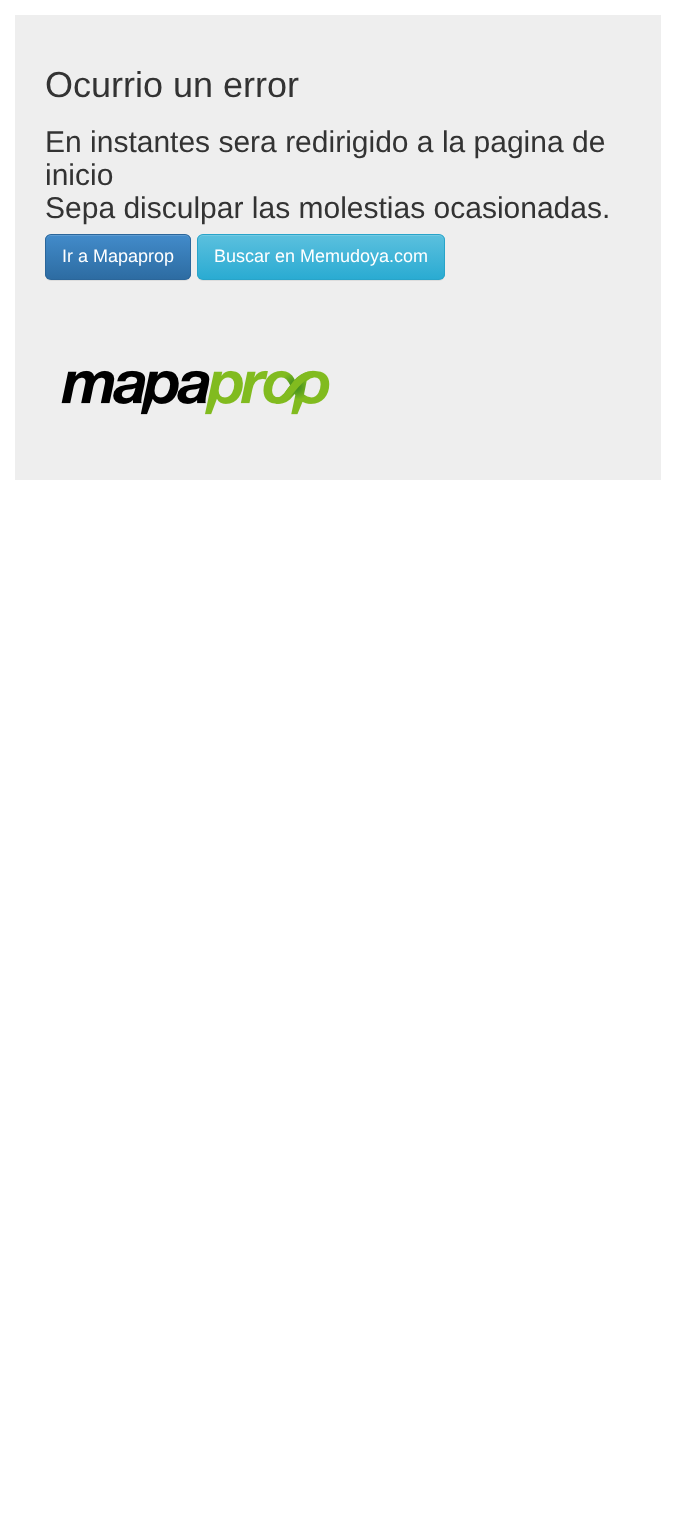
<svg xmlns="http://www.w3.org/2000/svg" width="676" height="1513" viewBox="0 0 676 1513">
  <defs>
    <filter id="blur1" x="-50%" y="-200%" width="200%" height="500%"><feGaussianBlur stdDeviation="0.5"/></filter>
    <clipPath id="clip1"><rect x="45" y="234" width="146" height="46" rx="6"/></clipPath>
    <linearGradient id="g1" gradientUnits="userSpaceOnUse" x1="118" y1="235" x2="118" y2="279"><stop offset="0" stop-color="#428bca"/><stop offset="1" stop-color="#2d6ca2"/></linearGradient>
    <clipPath id="clip2"><rect x="197" y="234" width="248" height="46" rx="6"/></clipPath>
    <linearGradient id="g2" gradientUnits="userSpaceOnUse" x1="321" y1="235" x2="321" y2="279"><stop offset="0" stop-color="#5bc0de"/><stop offset="1" stop-color="#2aabd2"/></linearGradient>
  </defs>
  <rect width="100%" height="100%" fill="#ffffff"/>
  <rect x="15" y="15" width="646" height="465" fill="#eeeeee"/>
  <text x="45" y="97" font-family="Liberation Sans" font-size="36" fill="#333333">Ocurrio un error</text>
  <text x="45" y="152" font-family="Liberation Sans" font-size="30" fill="#333333">En instantes sera redirigido a la pagina de</text>
  <text x="45" y="185" font-family="Liberation Sans" font-size="30" fill="#333333">inicio</text>
  <text x="45" y="218" font-family="Liberation Sans" font-size="30" fill="#333333">Sepa disculpar las molestias ocasionadas.</text>
  <rect x="45" y="235" width="146" height="46" rx="6" fill="#000000" fill-opacity="0.07" filter="url(#blur1)"/>
  <g clip-path="url(#clip1)">
    <rect x="45" y="235" width="146" height="44" fill="url(#g1)"/>
  </g>
  <path d="M51 236H185C188 236 190 238 190 241V240C190 237 188 235 185 235H51C48 235 46 237 46 240V241C46 238 48 236 51 236Z" fill="#5e9cd2"/>
  <rect x="45.5" y="234.5" width="145" height="45" rx="5.5" fill="none" stroke="#2b669a"/>
  <text x="62" y="262" font-family="Liberation Sans" font-size="18" fill="#ffffff">Ir a Mapaprop</text>
  <rect x="197" y="235" width="248" height="46" rx="6" fill="#000000" fill-opacity="0.07" filter="url(#blur1)"/>
  <g clip-path="url(#clip2)">
    <rect x="197" y="235" width="248" height="44" fill="url(#g2)"/>
  </g>
  <path d="M203 236H439C442 236 444 238 444 241V240C444 237 442 235 439 235H203C200 235 198 237 198 240V241C198 238 200 236 203 236Z" fill="#73c9e3"/>
  <rect x="197.5" y="234.5" width="247" height="45" rx="5.5" fill="none" stroke="#28a4c9"/>
  <text x="214" y="262" font-family="Liberation Sans" font-size="18" fill="#ffffff">Buscar en Memudoya.com</text>
  <image x="61" y="370" width="269" height="45" href="img1.png"/>
</svg>
